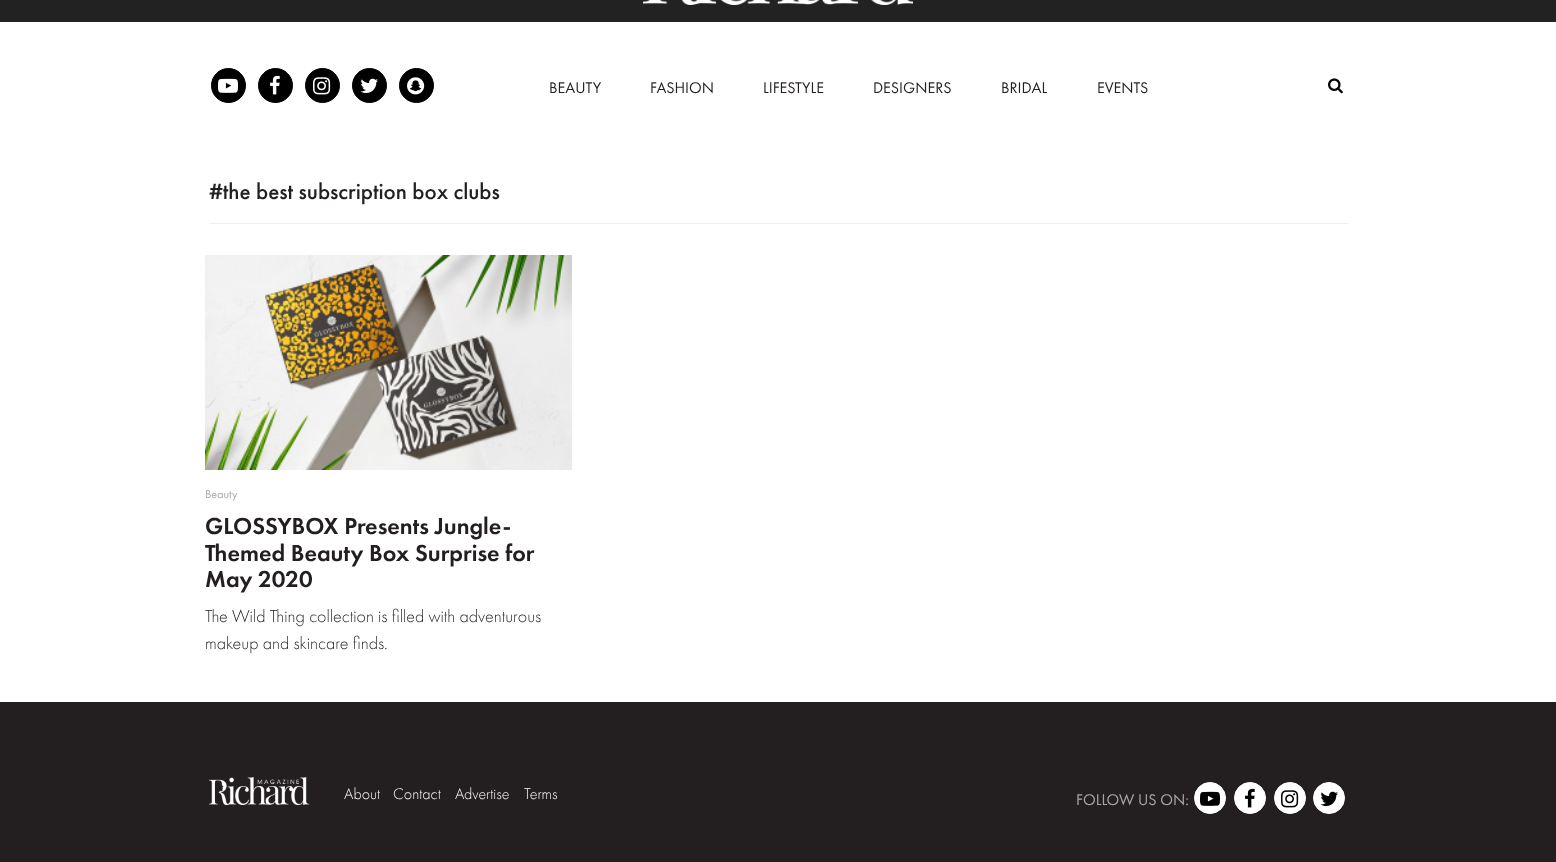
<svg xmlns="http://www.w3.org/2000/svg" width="1556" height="862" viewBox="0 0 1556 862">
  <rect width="100%" height="100%" fill="#ffffff"/>
  <rect x="0" y="0" width="1556" height="22" fill="#222222"/>
  <image x="643" y="0" width="270" height="5" href="img1.png"/>
  <circle cx="228.5" cy="85.5" r="17" fill="#000000" stroke="#000000"/>
  <image x="218" y="78" width="20" height="15" href="img2.png"/>
  <circle cx="275.5" cy="85.5" r="17" fill="#000000" stroke="#000000"/>
  <image x="270" y="75" width="10" height="20" href="img3.png"/>
  <circle cx="322.5" cy="85.5" r="17" fill="#000000" stroke="#000000"/>
  <image x="313" y="77" width="18" height="18" href="img4.png"/>
  <circle cx="369.5" cy="85.5" r="17" fill="#000000" stroke="#000000"/>
  <image x="360" y="78" width="18" height="15" href="img5.png"/>
  <circle cx="416.5" cy="85.5" r="17" fill="#000000" stroke="#000000"/>
  <image x="407" y="77" width="18" height="18" href="img6.png"/>
  <text x="549" y="93" font-family="Futura PT" font-size="16" fill="#231f20">BEAUTY</text>
  <text x="650" y="93" font-family="Futura PT" font-size="16" fill="#231f20">FASHION</text>
  <text x="763" y="93" font-family="Futura PT" font-size="16" fill="#231f20">LIFESTYLE</text>
  <text x="873" y="93" font-family="Futura PT" font-size="16" fill="#231f20">DESIGNERS</text>
  <text x="1001" y="93" font-family="Futura PT" font-size="16" fill="#231f20">BRIDAL</text>
  <text x="1097" y="93" font-family="Futura PT" font-size="16" fill="#231f20">EVENTS</text>
  <image x="1328" y="78" width="15" height="16" href="img7.png"/>
  <rect x="209" y="223" width="1139" height="1" fill="#eeeeee"/>
  <text x="209" y="199" font-family="Futura PT" font-size="23" font-weight="500" fill="#231f20">#the best subscription box clubs</text>
  <image x="205" y="255" width="367" height="215" href="img8.png"/>
  <text x="205" y="498" font-family="Futura PT" font-size="12" fill="#a8a9ad">Beauty</text>
  <text x="205" y="534" font-family="'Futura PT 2'" font-size="24" font-weight="500" fill="#231f20">GLOSSYBOX Presents Jungle-</text>
  <text x="205" y="561" font-family="'Futura PT 2'" font-size="24" font-weight="500" fill="#231f20">Themed Beauty Box Surprise for</text>
  <text x="205" y="587" font-family="'Futura PT 2'" font-size="24" font-weight="500" fill="#231f20">May 2020</text>
  <text x="205" y="622" font-family="Futura PT" font-size="18" font-weight="300" fill="#231f20">The Wild Thing collection is filled with adventurous</text>
  <text x="205" y="649" font-family="Futura PT" font-size="18" font-weight="300" fill="#231f20">makeup and skincare finds.</text>
  <rect x="0" y="702" width="1556" height="160" fill="#231f20"/>
  <image x="209" y="777" width="100" height="28" href="img9.png"/>
  <text x="344" y="799" font-family="Futura PT" font-size="16" font-weight="300" fill="#ffffff">About</text>
  <text x="393" y="799" font-family="Futura PT" font-size="16" font-weight="300" fill="#ffffff">Contact</text>
  <text x="455" y="799" font-family="Futura PT" font-size="16" font-weight="300" fill="#ffffff">Advertise</text>
  <text x="524" y="799" font-family="Futura PT" font-size="16" font-weight="300" fill="#ffffff">Terms</text>
  <text x="1076" y="805" font-family="Futura PT" font-size="16" fill="#a8a9ad">FOLLOW US ON:</text>
  <circle cx="1210" cy="798" r="15.5" fill="#ffffff" stroke="#ffffff"/>
  <image x="1200" y="791" width="20" height="15" href="img10.png"/>
  <circle cx="1250" cy="798" r="15.5" fill="#ffffff" stroke="#ffffff"/>
  <image x="1245" y="788" width="10" height="20" href="img11.png"/>
  <circle cx="1290" cy="798" r="15.5" fill="#ffffff" stroke="#ffffff"/>
  <image x="1281" y="790" width="18" height="18" href="img12.png"/>
  <circle cx="1329" cy="798" r="15.5" fill="#ffffff" stroke="#ffffff"/>
  <image x="1320" y="791" width="18" height="15" href="img13.png"/>
</svg>
